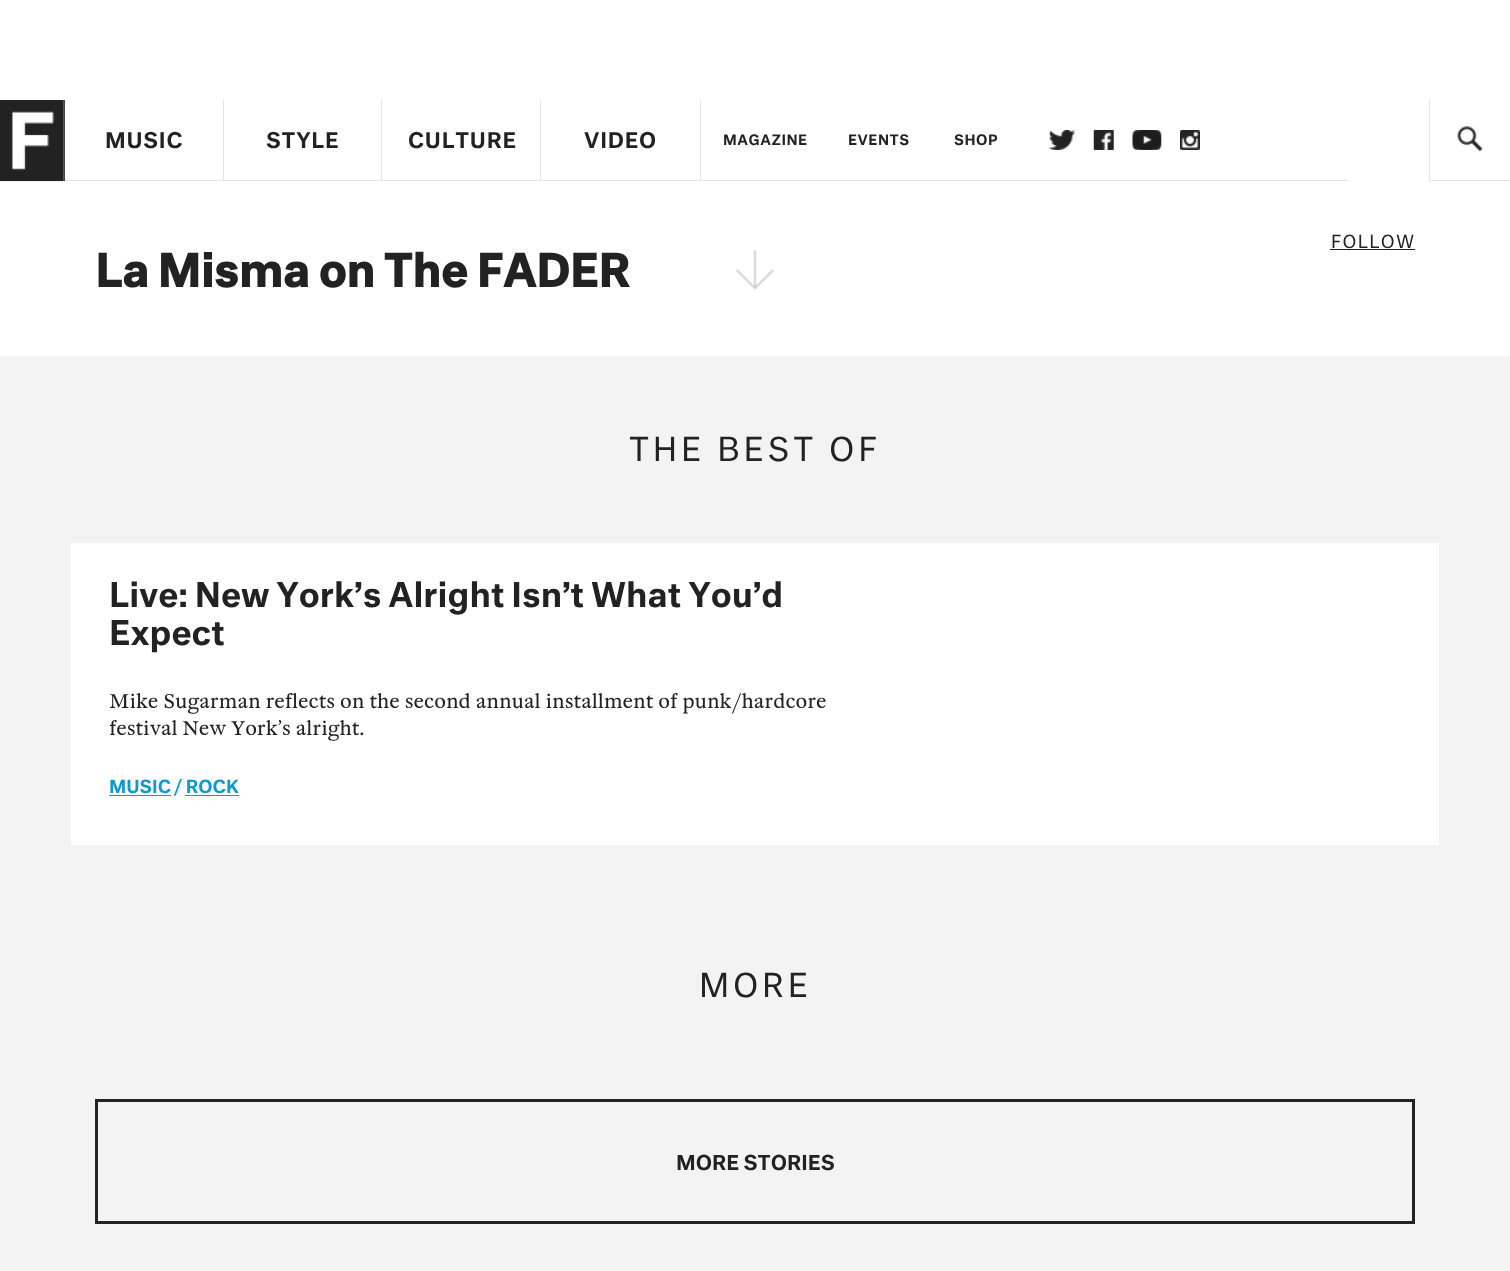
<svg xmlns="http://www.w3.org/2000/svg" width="1510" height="1271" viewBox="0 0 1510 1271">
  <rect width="100%" height="100%" fill="#ffffff"/>
  <rect x="64" y="100" width="1" height="81" fill="#444444"/>
  <image x="0" y="100" width="64" height="82" href="img1.png"/>
  <rect x="223" y="100" width="1" height="81" fill="#e5e5e5"/>
  <rect x="65" y="180" width="159" height="1" fill="#e5e5e5"/>
  <text x="105" y="148" font-family="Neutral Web" font-size="21" font-weight="500" letter-spacing="0.75" fill="#222222">MUSIC</text>
  <rect x="381" y="100" width="1" height="81" fill="#e5e5e5"/>
  <rect x="224" y="180" width="159" height="1" fill="#e5e5e5"/>
  <text x="266" y="148" font-family="Neutral Web" font-size="21" font-weight="500" letter-spacing="0.75" fill="#222222">STYLE</text>
  <rect x="540" y="100" width="1" height="81" fill="#e5e5e5"/>
  <rect x="383" y="180" width="158" height="1" fill="#e5e5e5"/>
  <text x="408" y="148" font-family="Neutral Web" font-size="21" font-weight="500" letter-spacing="0.75" fill="#222222">CULTURE</text>
  <rect x="700" y="100" width="1" height="81" fill="#e5e5e5"/>
  <rect x="541" y="180" width="807" height="1" fill="#e5e5e5"/>
  <text x="584" y="148" font-family="Neutral Web" font-size="21" font-weight="500" letter-spacing="0.75" fill="#222222">VIDEO</text>
  <text x="723" y="145" font-family="Neutral Web" font-size="14" font-weight="500" letter-spacing="0.5" fill="#222222">MAGAZINE</text>
  <text x="848" y="145" font-family="Neutral Web" font-size="14" font-weight="500" letter-spacing="0.5" fill="#222222">EVENTS</text>
  <text x="954" y="145" font-family="Neutral Web" font-size="14" font-weight="500" letter-spacing="0.5" fill="#222222">SHOP</text>
  <image x="1048" y="130" width="27" height="20" href="img2.png"/>
  <image x="1093" y="130" width="21" height="20" href="img3.png"/>
  <image x="1132" y="130" width="30" height="20" href="img4.png"/>
  <image x="1180" y="130" width="20" height="20" href="img5.png"/>
  <rect x="1429" y="180" width="81" height="1" fill="#e5e5e5"/>
  <rect x="1429" y="100" width="1" height="81" fill="#e5e5e5"/>
  <image x="1457" y="126" width="26" height="26" href="img6.png"/>
  <rect x="0" y="356" width="1510" height="915" fill="#f3f3f3"/>
  <text x="1331" y="248" font-family="Neutral Web" font-size="17.5" letter-spacing="1.25" fill="#222222">FOLLOW</text>
  <rect x="1330" y="249" width="85" height="1" fill="#222222"/>
  <text x="95" y="287" font-family="Neutral Web" font-size="43.75" font-weight="bold" fill="#222222">La Misma on The FADER</text>
  <image x="736" y="250" width="38" height="40" href="img7.png"/>
  <text x="629" y="461" font-family="Neutral Web" font-size="32" letter-spacing="3.75" fill="#222222">THE BEST OF</text>
  <rect x="71" y="543" width="1368" height="302" fill="#ffffff"/>
  <text x="109" y="607" font-family="Neutral Web" font-size="33" font-weight="500" fill="#222222">Live: New York’s Alright Isn’t What You’d</text>
  <text x="109" y="645" font-family="Neutral Web" font-size="33" font-weight="500" fill="#222222">Expect</text>
  <text x="109" y="708" font-family="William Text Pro" font-size="19.8" fill="#222222">Mike Sugarman reflects on the second annual installment of punk/hardcore</text>
  <text x="109" y="735" font-family="William Text Pro" font-size="19.8" fill="#222222">festival New York’s alright.</text>
  <rect x="109" y="795" width="62" height="1" fill="#0d9bcf"/>
  <text x="109" y="793" font-family="Neutral Web" font-size="17.5" font-weight="500" fill="#0d9bcf">MUSIC / ROCK</text>
  <rect x="185" y="795" width="54" height="1" fill="#0d9bcf"/>
  <text x="699" y="997" font-family="Neutral Web" font-size="32" letter-spacing="3.75" fill="#222222">MORE</text>
  <rect x="96.5" y="1100.5" width="1317" height="122" fill="none" stroke="#222222" stroke-width="3"/>
  <text x="676" y="1170" font-family="Neutral Web" font-size="20" font-weight="500" fill="#222222">MORE STORIES</text>
</svg>
